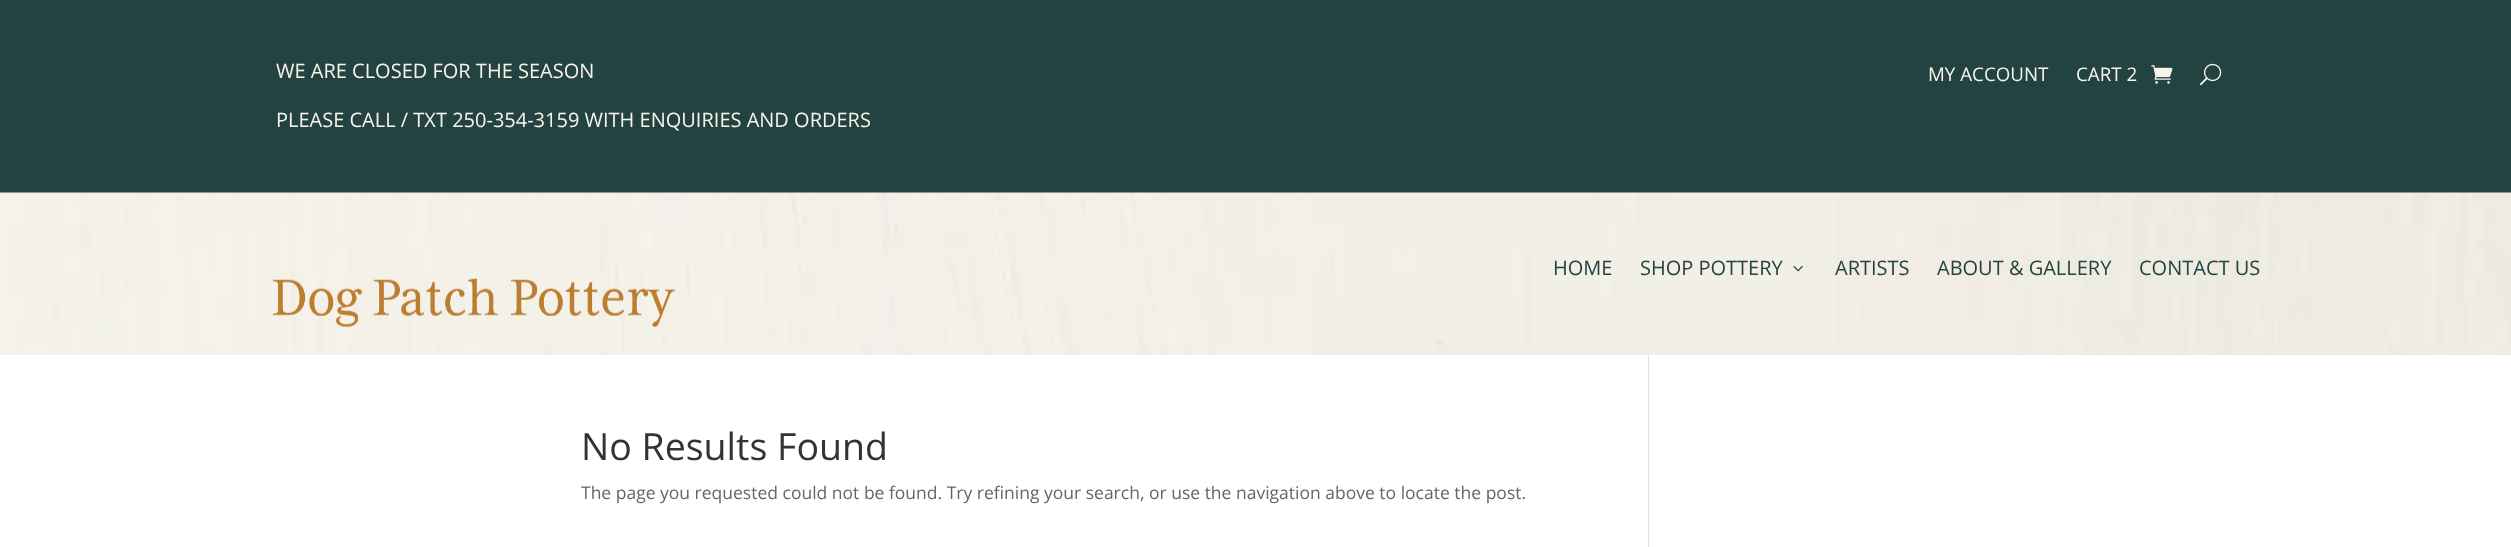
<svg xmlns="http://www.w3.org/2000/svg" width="2511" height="547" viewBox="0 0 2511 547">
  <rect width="100%" height="100%" fill="#ffffff"/>
  <rect x="0" y="0" width="2511" height="193" fill="#234242"/>
  <text x="276" y="78" font-family="Open Sans" font-size="20" fill="#f8f5e8">WE ARE CLOSED FOR THE SEASON</text>
  <text x="276" y="127" font-family="Open Sans" font-size="20" fill="#f8f5e8">PLEASE CALL / TXT 250-354-3159 WITH ENQUIRIES AND ORDERS</text>
  <text x="1928" y="81" font-family="Open Sans" font-size="18.75" fill="#f8f5e8">MY ACCOUNT</text>
  <text x="2076" y="81" font-family="Open Sans" font-size="18.75" fill="#f8f5e8">CART 2</text>
  <image x="2151" y="65" width="22" height="19" href="img1.png"/>
  <image x="2200" y="63" width="22" height="23" href="img2.png"/>
  <image x="0" y="192" width="2511" height="163" href="img3.png"/>
  <text x="1553" y="275" font-family="Open Sans" font-size="20" fill="#234242">HOME</text>
  <text x="1640" y="275" font-family="Open Sans" font-size="20" fill="#234242">SHOP POTTERY</text>
  <image x="1793" y="266" width="10" height="6" href="img4.png"/>
  <text x="1835" y="275" font-family="Open Sans" font-size="20" fill="#234242">ARTISTS</text>
  <text x="1937" y="275" font-family="Open Sans" font-size="20" fill="#234242">ABOUT &amp; GALLERY</text>
  <text x="2139" y="275" font-family="Open Sans" font-size="20" fill="#234242">CONTACT US</text>
  <image x="273" y="277" width="403" height="50" href="img5.png"/>
  <text x="581" y="460" font-family="Open Sans" font-size="37.5" fill="#333333">No Results Found</text>
  <text x="581" y="499" font-family="Open Sans" font-size="17.5" fill="#666666">The page you requested could not be found. Try refining your search, or use the navigation above to locate the post.</text>
  <rect x="1648" y="355" width="1" height="192" fill="#e2e2e2"/>
</svg>
